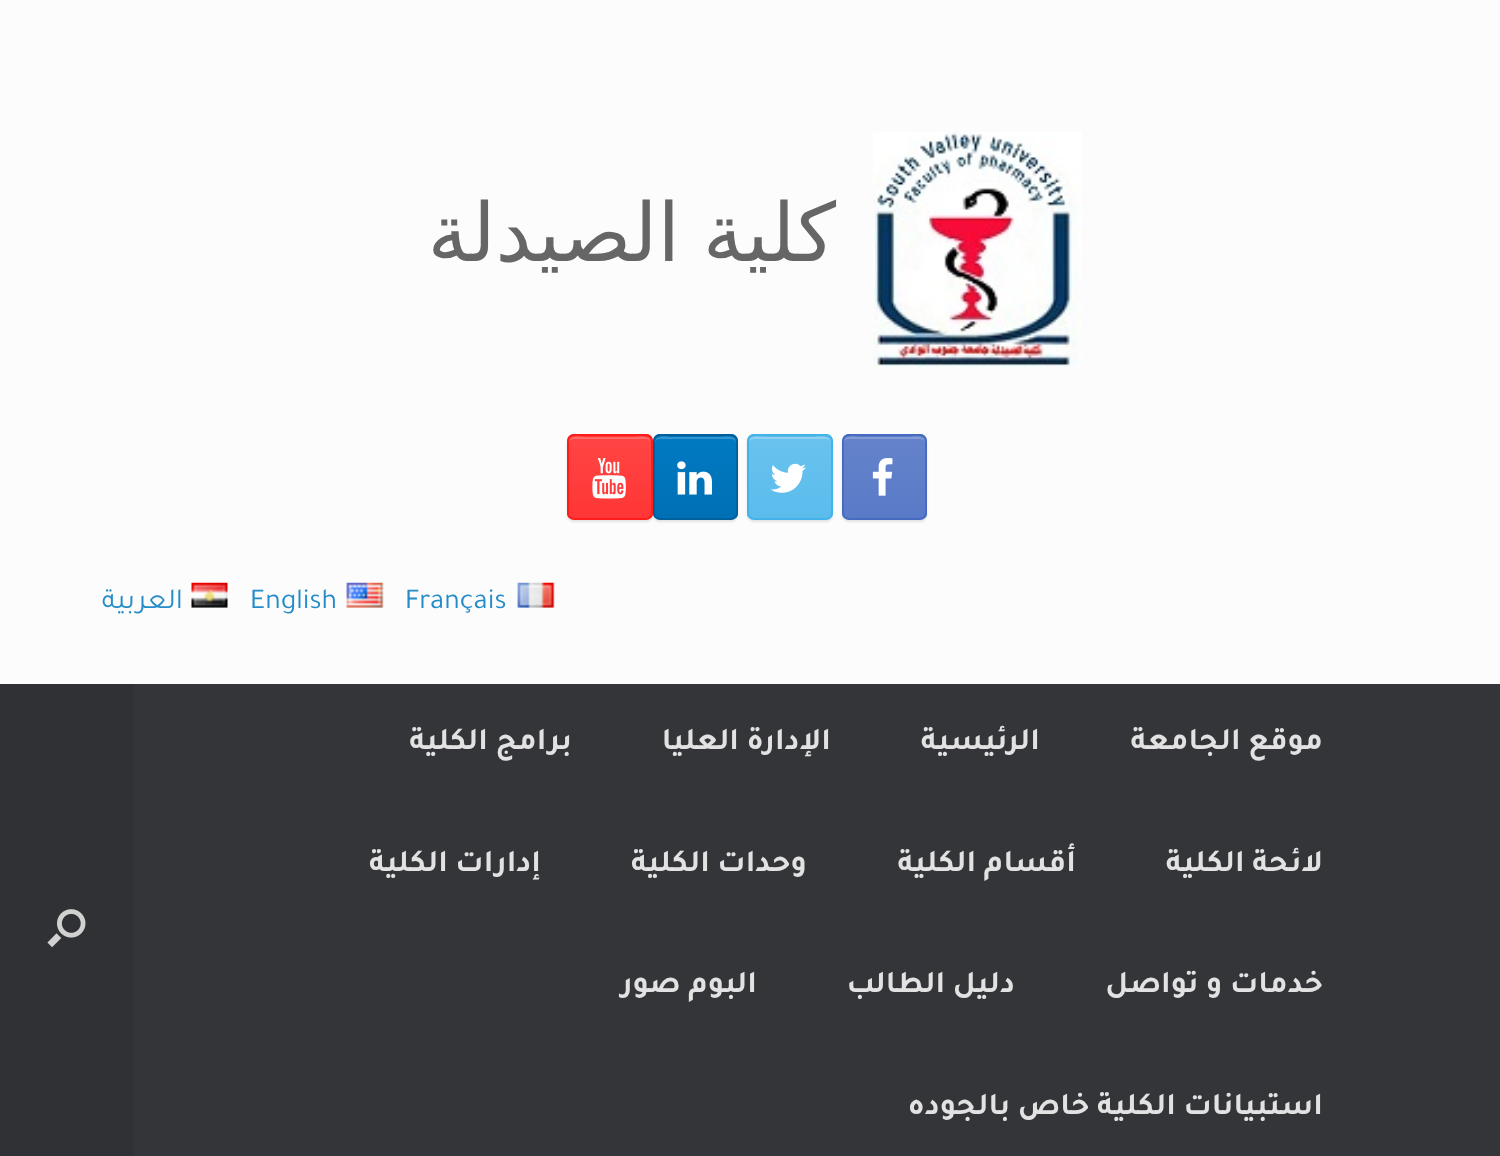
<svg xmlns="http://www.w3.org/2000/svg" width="1500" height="1156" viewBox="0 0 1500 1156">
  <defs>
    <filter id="blur1" x="-50%" y="-200%" width="200%" height="500%"><feGaussianBlur stdDeviation="1"/></filter>
    <clipPath id="clip1"><rect x="842" y="434" width="85" height="86" rx="7"/></clipPath>
    <linearGradient id="g1" gradientUnits="userSpaceOnUse" x1="844" y1="437" x2="844" y2="356"><stop offset="0" stop-color="#597ac7"/><stop offset="1" stop-color="#6483cb"/></linearGradient>
    <linearGradient id="g2" gradientUnits="userSpaceOnUse" x1="844" y1="518" x2="844" y2="437"><stop offset="0" stop-color="#597ac7"/><stop offset="1" stop-color="#6483cb"/></linearGradient>
    <clipPath id="clip2"><rect x="747" y="434" width="86" height="86" rx="7"/></clipPath>
    <linearGradient id="g3" gradientUnits="userSpaceOnUse" x1="749" y1="437" x2="749" y2="356"><stop offset="0" stop-color="#5bbcec"/><stop offset="1" stop-color="#69c2ee"/></linearGradient>
    <linearGradient id="g4" gradientUnits="userSpaceOnUse" x1="749" y1="518" x2="749" y2="437"><stop offset="0" stop-color="#5bbcec"/><stop offset="1" stop-color="#69c2ee"/></linearGradient>
    <clipPath id="clip3"><rect x="653" y="434" width="85" height="86" rx="7"/></clipPath>
    <linearGradient id="g5" gradientUnits="userSpaceOnUse" x1="655" y1="437" x2="655" y2="356"><stop offset="0" stop-color="#0070b4"/><stop offset="1" stop-color="#007ac3"/></linearGradient>
    <linearGradient id="g6" gradientUnits="userSpaceOnUse" x1="655" y1="518" x2="655" y2="437"><stop offset="0" stop-color="#0070b4"/><stop offset="1" stop-color="#007ac3"/></linearGradient>
    <clipPath id="clip4"><rect x="567" y="434" width="86" height="86" rx="7"/></clipPath>
    <linearGradient id="g7" gradientUnits="userSpaceOnUse" x1="569" y1="437" x2="569" y2="356"><stop offset="0" stop-color="#ff3635"/><stop offset="1" stop-color="#ff4544"/></linearGradient>
    <linearGradient id="g8" gradientUnits="userSpaceOnUse" x1="569" y1="518" x2="569" y2="437"><stop offset="0" stop-color="#ff3635"/><stop offset="1" stop-color="#ff4544"/></linearGradient>
  </defs>
  <rect width="100%" height="100%" fill="#fcfcfc"/>
  <image x="873" y="132" width="209" height="235" href="img1.png"/>
  <text x="836" y="261" word-spacing="-3" font-family="DejaVu Sans" font-size="81" direction="rtl" fill="#666666">كلية الصيدلة</text>
  <rect x="842" y="437" width="85" height="85" rx="7" fill="#000000" fill-opacity="0.1" filter="url(#blur1)"/>
  <g clip-path="url(#clip1)">
    <rect x="842" y="434" width="85" height="3" fill="url(#g1)"/>
    <rect x="842" y="437" width="85" height="81" fill="url(#g2)"/>
  </g>
  <path d="M848 439H920C923 439 925 441 925 443C925 434 914 437 908 437H861C855 437 844 434 844 443C844 441 846 439 848 439Z" fill="#839cd5"/>
  <rect x="843" y="435" width="83" height="84" rx="6" fill="none" stroke="#466bc1" stroke-width="2"/>
  <image x="872" y="458" width="21" height="38" href="img2.png"/>
  <rect x="747" y="437" width="86" height="85" rx="7" fill="#000000" fill-opacity="0.1" filter="url(#blur1)"/>
  <g clip-path="url(#clip2)">
    <rect x="747" y="434" width="86" height="3" fill="url(#g3)"/>
    <rect x="747" y="437" width="86" height="81" fill="url(#g4)"/>
  </g>
  <path d="M754 439H826C828 439 830 441 830 443C830 434 819 437 813 437H766C760 437 749 434 749 443C749 441 751 439 754 439Z" fill="#8ed1f2"/>
  <rect x="748" y="435" width="84" height="84" rx="6" fill="none" stroke="#44b3e9" stroke-width="2"/>
  <image x="770" y="463" width="36" height="30" href="img3.png"/>
  <rect x="653" y="437" width="85" height="85" rx="7" fill="#000000" fill-opacity="0.1" filter="url(#blur1)"/>
  <g clip-path="url(#clip3)">
    <rect x="653" y="434" width="85" height="3" fill="url(#g5)"/>
    <rect x="653" y="437" width="85" height="81" fill="url(#g6)"/>
  </g>
  <path d="M659 439H731C734 439 736 441 736 443C736 434 725 437 719 437H672C666 437 655 434 655 443C655 441 657 439 659 439Z" fill="#3395cf"/>
  <rect x="654" y="435" width="83" height="84" rx="6" fill="none" stroke="#00609b" stroke-width="2"/>
  <image x="677" y="461" width="35" height="34" href="img4.png"/>
  <rect x="567" y="437" width="86" height="85" rx="7" fill="#000000" fill-opacity="0.1" filter="url(#blur1)"/>
  <g clip-path="url(#clip4)">
    <rect x="567" y="434" width="86" height="3" fill="url(#g7)"/>
    <rect x="567" y="437" width="86" height="81" fill="url(#g8)"/>
  </g>
  <path d="M574 439H646C648 439 650 441 650 443C650 434 639 437 633 437H586C580 437 569 434 569 443C569 441 571 439 574 439Z" fill="#ff6a69"/>
  <rect x="568" y="435" width="84" height="84" rx="6" fill="none" stroke="#ff1d1b" stroke-width="2"/>
  <image x="592" y="458" width="34" height="41" href="img5.png"/>
  <image x="517" y="582" width="38" height="26" href="img6.png"/>
  <text x="405" y="608" font-family="Tajawal" font-size="29" fill="#248cc8">Français</text>
  <image x="346" y="582" width="38" height="26" href="img7.png"/>
  <text x="250" y="608" font-family="Tajawal" font-size="29" fill="#248cc8">English</text>
  <image x="191" y="582" width="37" height="26" href="img8.png"/>
  <text x="183" y="608" font-family="Tajawal" font-size="29" direction="rtl" fill="#248cc8">العربية</text>
  <rect x="133" y="684" width="1367" height="472" fill="#343538"/>
  <text x="1323" y="749" font-family="Tajawal" font-size="31.5" font-weight="bold" direction="rtl" fill="#e2e2e2">موقع الجامعة</text>
  <text x="1040" y="749" font-family="Tajawal" font-size="31.5" font-weight="bold" direction="rtl" fill="#e2e2e2">الرئيسية</text>
  <text x="831" y="749" font-family="Tajawal" font-size="31.5" font-weight="bold" direction="rtl" fill="#e2e2e2">الإدارة العليا</text>
  <text x="572" y="749" font-family="Tajawal" font-size="31.5" font-weight="bold" direction="rtl" fill="#e2e2e2">برامج الكلية</text>
  <text x="1323" y="871" font-family="Tajawal" font-size="31.5" font-weight="bold" direction="rtl" fill="#e2e2e2">لائحة الكلية</text>
  <text x="1076" y="871" font-family="Tajawal" font-size="31.5" font-weight="bold" direction="rtl" fill="#e2e2e2">أقسام الكلية</text>
  <text x="807" y="871" font-family="Tajawal" font-size="31.5" font-weight="bold" direction="rtl" fill="#e2e2e2">وحدات الكلية</text>
  <text x="541" y="871" font-family="Tajawal" font-size="31.5" font-weight="bold" direction="rtl" fill="#e2e2e2">إدارات الكلية</text>
  <text x="1323" y="992" font-family="Tajawal" font-size="31.5" font-weight="bold" direction="rtl" fill="#e2e2e2">خدمات و تواصل</text>
  <text x="1015" y="992" font-family="Tajawal" font-size="31.5" font-weight="bold" direction="rtl" fill="#e2e2e2">دليل الطالب</text>
  <text x="757" y="992" font-family="Tajawal" font-size="31.5" font-weight="bold" direction="rtl" fill="#e2e2e2">البوم صور</text>
  <text x="1323" y="1114" font-family="Tajawal" font-size="31.5" font-weight="bold" direction="rtl" fill="#e2e2e2">استبيانات الكلية خاص بالجوده</text>
  <rect x="0" y="684" width="133" height="472" fill="#303134"/>
  <image x="47" y="909" width="39" height="39" href="img9.png"/>
</svg>
